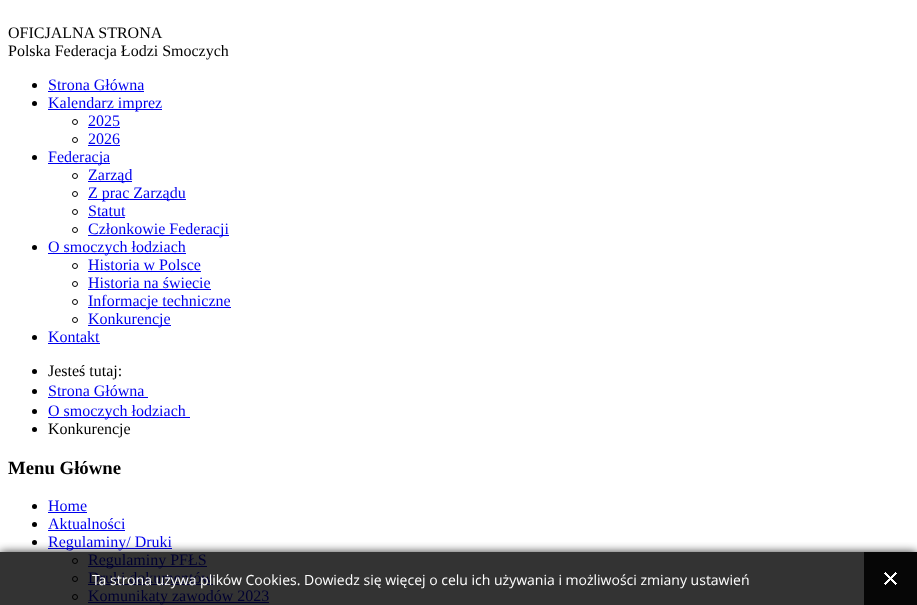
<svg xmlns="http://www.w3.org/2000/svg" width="917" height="605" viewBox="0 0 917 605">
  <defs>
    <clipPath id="clip1"><rect x="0" y="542" width="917" height="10"/></clipPath>
    <filter id="blur1" x="-50%" y="-200%" width="200%" height="500%"><feGaussianBlur stdDeviation="5"/></filter>
  </defs>
  <rect width="100%" height="100%" fill="#ffffff"/>
  <rect x="0" y="552" width="864" height="53" fill="#333333"/>
  <text x="8" y="38" font-family="Liberation Serif" font-size="16" fill="#000000">OFICJALNA STRONA</text>
  <text x="8" y="56" font-family="Liberation Serif" font-size="16" fill="#000000">Polska Federacja Łodzi Smoczych</text>
  <circle cx="34.5" cy="85.5" r="2.5" fill="#000000"/>
  <text x="48" y="90" font-family="Liberation Serif" font-size="16" fill="#0000ee">Strona Główna</text>
  <rect x="48" y="91" width="96" height="1" fill="#0000ee"/>
  <circle cx="34.5" cy="103.5" r="2.5" fill="#000000"/>
  <rect x="48" y="109" width="114" height="1" fill="#0000ee"/>
  <text x="48" y="108" font-family="Liberation Serif" font-size="16" fill="#0000ee">Kalendarz imprez</text>
  <circle cx="75" cy="122" r="2.5" fill="none" stroke="#000000"/>
  <text x="88" y="126" font-family="Liberation Serif" font-size="16" fill="#0000ee">2025</text>
  <rect x="88" y="127" width="32" height="1" fill="#0000ee"/>
  <circle cx="75" cy="140" r="2.5" fill="none" stroke="#000000"/>
  <text x="88" y="144" font-family="Liberation Serif" font-size="16" fill="#0000ee">2026</text>
  <rect x="88" y="145" width="32" height="1" fill="#0000ee"/>
  <circle cx="34.5" cy="157.5" r="2.5" fill="#000000"/>
  <rect x="48" y="163" width="62" height="1" fill="#0000ee"/>
  <text x="48" y="162" font-family="Liberation Serif" font-size="16" fill="#0000ee">Federacja</text>
  <circle cx="75" cy="176" r="2.5" fill="none" stroke="#000000"/>
  <rect x="88" y="181" width="44" height="1" fill="#0000ee"/>
  <text x="88" y="180" font-family="Liberation Serif" font-size="16" fill="#0000ee">Zarząd</text>
  <circle cx="75" cy="194" r="2.5" fill="none" stroke="#000000"/>
  <rect x="88" y="199" width="98" height="1" fill="#0000ee"/>
  <text x="88" y="198" font-family="Liberation Serif" font-size="16" fill="#0000ee">Z prac Zarządu</text>
  <circle cx="75" cy="212" r="2.5" fill="none" stroke="#000000"/>
  <text x="88" y="216" font-family="Liberation Serif" font-size="16" fill="#0000ee">Statut</text>
  <rect x="88" y="217" width="37" height="1" fill="#0000ee"/>
  <circle cx="75" cy="230" r="2.5" fill="none" stroke="#000000"/>
  <rect x="88" y="235" width="141" height="1" fill="#0000ee"/>
  <text x="88" y="234" font-family="Liberation Serif" font-size="16" fill="#0000ee">Członkowie Federacji</text>
  <circle cx="34.5" cy="247.5" r="2.5" fill="#000000"/>
  <rect x="48" y="253" width="138" height="1" fill="#0000ee"/>
  <text x="48" y="252" font-family="Liberation Serif" font-size="16" fill="#0000ee">O smoczych łodziach</text>
  <circle cx="75" cy="266" r="2.5" fill="none" stroke="#000000"/>
  <text x="88" y="270" font-family="Liberation Serif" font-size="16" fill="#0000ee">Historia w Polsce</text>
  <rect x="88" y="271" width="113" height="1" fill="#0000ee"/>
  <circle cx="75" cy="284" r="2.5" fill="none" stroke="#000000"/>
  <text x="88" y="288" font-family="Liberation Serif" font-size="16" fill="#0000ee">Historia na świecie</text>
  <rect x="88" y="289" width="123" height="1" fill="#0000ee"/>
  <circle cx="75" cy="302" r="2.5" fill="none" stroke="#000000"/>
  <rect x="88" y="307" width="143" height="1" fill="#0000ee"/>
  <text x="88" y="306" font-family="Liberation Serif" font-size="16" fill="#0000ee">Informacje techniczne</text>
  <circle cx="75" cy="320" r="2.5" fill="none" stroke="#000000"/>
  <rect x="88" y="325" width="83" height="1" fill="#0000ee"/>
  <text x="88" y="324" font-family="Liberation Serif" font-size="16" fill="#0000ee">Konkurencje</text>
  <circle cx="34.5" cy="337.5" r="2.5" fill="#000000"/>
  <text x="48" y="342" font-family="Liberation Serif" font-size="16" fill="#0000ee">Kontakt</text>
  <rect x="48" y="343" width="52" height="1" fill="#0000ee"/>
  <circle cx="34.5" cy="371.5" r="2.5" fill="#000000"/>
  <text x="48" y="376" font-family="Liberation Serif" font-size="16" fill="#000000">Jesteś tutaj:</text>
  <circle cx="34.5" cy="391.5" r="2.5" fill="#000000"/>
  <text x="48" y="396" font-family="Liberation Serif" font-size="16" fill="#0000ee">Strona Główna</text>
  <rect x="48" y="397" width="100" height="1" fill="#0000ee"/>
  <circle cx="34.5" cy="411.5" r="2.5" fill="#000000"/>
  <rect x="48" y="417" width="142" height="1" fill="#0000ee"/>
  <text x="48" y="416" font-family="Liberation Serif" font-size="16" fill="#0000ee">O smoczych łodziach</text>
  <circle cx="34.5" cy="429.5" r="2.5" fill="#000000"/>
  <text x="48" y="434" font-family="Liberation Serif" font-size="16" fill="#000000">Konkurencje</text>
  <text x="8" y="474" font-family="Liberation Serif" font-size="18.75" font-weight="bold" fill="#000000">Menu Główne</text>
  <circle cx="34.5" cy="506.5" r="2.5" fill="#000000"/>
  <text x="48" y="511" font-family="Liberation Serif" font-size="16" fill="#0000ee">Home</text>
  <rect x="48" y="512" width="39" height="1" fill="#0000ee"/>
  <circle cx="34.5" cy="524.5" r="2.5" fill="#000000"/>
  <text x="48" y="529" font-family="Liberation Serif" font-size="16" fill="#0000ee">Aktualności</text>
  <rect x="48" y="530" width="77" height="1" fill="#0000ee"/>
  <circle cx="34.5" cy="542.5" r="2.5" fill="#000000"/>
  <rect x="48" y="548" width="124" height="1" fill="#0000ee"/>
  <text x="48" y="547" font-family="Liberation Serif" font-size="16" fill="#0000ee">Regulaminy/ Druki</text>
  <circle cx="75" cy="561" r="2.5" fill="none" stroke="#000000"/>
  <rect x="88" y="566" width="119" height="1" fill="#000030"/>
  <text x="88" y="565" font-family="Liberation Serif" font-size="16" fill="#000030">Regulaminy PFŁS</text>
  <circle cx="75" cy="579" r="2.5" fill="none" stroke="#000000"/>
  <text x="88" y="583" font-family="Liberation Serif" font-size="16" fill="#000030">Druki dokumentów</text>
  <rect x="88" y="584" width="125" height="1" fill="#000030"/>
  <circle cx="75" cy="597" r="2.5" fill="none" stroke="#000000"/>
  <rect x="88" y="602" width="181" height="1" fill="#000030"/>
  <text x="88" y="601" font-family="Liberation Serif" font-size="16" fill="#000030">Komunikaty zawodów 2023</text>
  <g clip-path="url(#clip1)">
    <rect x="0" y="552" width="917" height="53" fill="#000000" fill-opacity="0.8" filter="url(#blur1)"/>
  </g>
  <text x="92" y="585" font-family="Open Sans" font-size="14" fill="#ffffff">Ta strona używa plików Cookies. Dowiedz się więcej o celu ich używania i możliwości zmiany ustawień</text>
  <rect x="864" y="552" width="53" height="53" fill="#060606"/>
  <image x="884" y="572" width="13" height="13" href="img1.png"/>
</svg>
